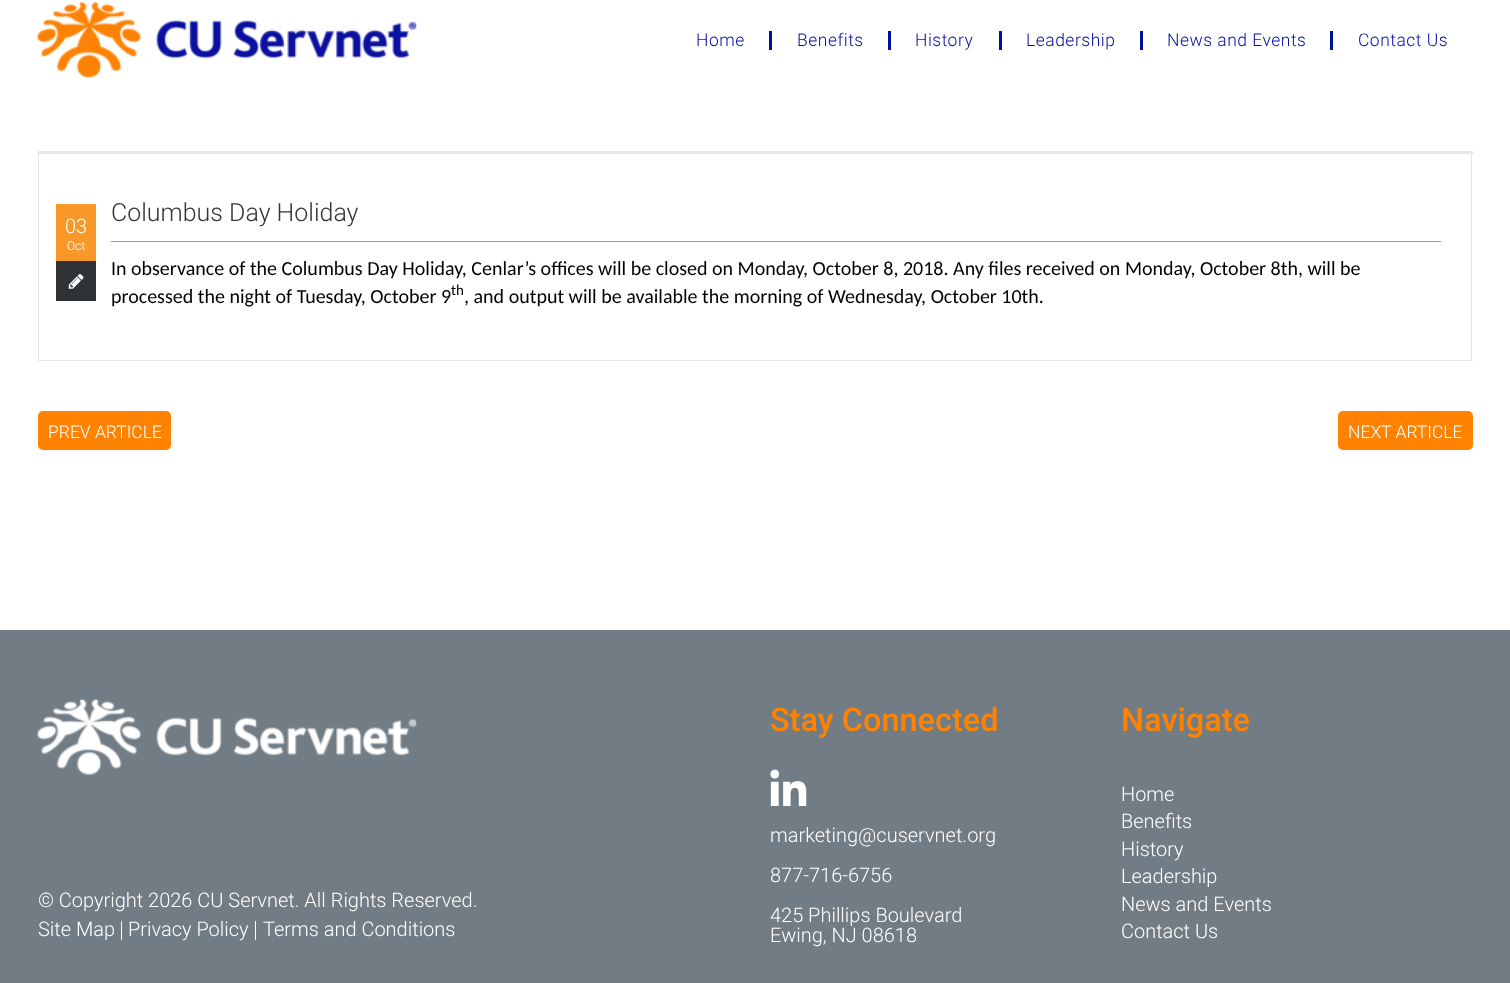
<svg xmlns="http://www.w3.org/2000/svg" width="1510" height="983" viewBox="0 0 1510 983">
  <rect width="100%" height="100%" fill="#ffffff"/>
  <image x="37" y="2" width="380" height="76" href="img1.png"/>
  <text x="696" y="46" font-family="Roboto" font-size="17.5" font-weight="300" letter-spacing="0.5" fill="#000f9f">Home</text>
  <rect x="769" y="31" width="3" height="19" fill="#000f9f"/>
  <text x="797" y="46" font-family="Roboto" font-size="17.5" font-weight="300" letter-spacing="0.5" fill="#000f9f">Benefits</text>
  <rect x="888" y="31" width="3" height="19" fill="#000f9f"/>
  <text x="915" y="46" font-family="Roboto" font-size="17.5" font-weight="300" letter-spacing="0.5" fill="#000f9f">History</text>
  <rect x="999" y="31" width="3" height="19" fill="#000f9f"/>
  <text x="1026" y="46" font-family="Roboto" font-size="17.5" font-weight="300" letter-spacing="0.5" fill="#000f9f">Leadership</text>
  <rect x="1140" y="31" width="3" height="19" fill="#000f9f"/>
  <text x="1167" y="46" font-family="Roboto" font-size="17.5" font-weight="300" letter-spacing="0.5" fill="#000f9f">News and Events</text>
  <rect x="1330" y="31" width="3" height="19" fill="#000f9f"/>
  <text x="1358" y="46" font-family="Roboto" font-size="17.5" font-weight="300" letter-spacing="0.5" fill="#000f9f">Contact Us</text>
  <rect x="38" y="151" width="1435" height="3" fill="#e6e6e6"/>
  <rect x="1471" y="151" width="1" height="210" fill="#e6e6e6"/>
  <rect x="38" y="360" width="1435" height="1" fill="#e6e6e6"/>
  <rect x="38" y="151" width="1" height="210" fill="#e6e6e6"/>
  <rect x="56" y="204" width="40" height="57" fill="#f89828"/>
  <text x="65" y="233" font-family="Roboto" font-size="20" font-weight="300" fill="#ffffff">03</text>
  <text x="67" y="250" font-family="Roboto" font-size="12" font-weight="300" fill="#ffffff">Oct</text>
  <rect x="56" y="261" width="40" height="40" fill="#303335"/>
  <image x="68" y="274" width="16" height="15" href="img2.png"/>
  <text x="111" y="221" font-family="Roboto" font-size="25" font-weight="300" fill="#313335">Columbus Day Holiday</text>
  <rect x="111" y="241" width="1330" height="1" fill="#ff8300"/>
  <text x="111" y="275" font-family="Carlito" font-size="20" fill="#000000">In observance of the Columbus Day Holiday, Cenlar’s offices will be closed on Monday, October 8, 2018. Any files received on Monday, October 8th, will be</text>
  <text x="111" y="303" font-family="Carlito" font-size="20" fill="#000000">processed the night of Tuesday, October 9</text>
  <text x="451" y="295" font-family="Carlito" font-size="15" fill="#000000">th</text>
  <text x="464" y="303" font-family="Carlito" font-size="20" fill="#000000">, and output will be available the morning of Wednesday, October 10th.</text>
  <rect x="38" y="411" width="133" height="39" rx="5" fill="#ff8300"/>
  <text x="48" y="438" font-family="Roboto" font-size="17.5" font-weight="300" fill="#ffffff">PREV ARTICLE</text>
  <rect x="1338" y="411" width="135" height="39" rx="5" fill="#ff8300"/>
  <text x="1348" y="438" font-family="Roboto" font-size="17.5" font-weight="300" fill="#ffffff">NEXT ARTICLE</text>
  <rect x="0" y="630" width="1510" height="353" fill="#727c84"/>
  <image x="37" y="699" width="380" height="76" href="img3.png"/>
  <text x="38" y="907" font-family="Roboto" font-size="20" font-weight="300" fill="#ffffff">© Copyright 2026 CU Servnet. All Rights Reserved.</text>
  <text x="38" y="936" font-family="Roboto" font-size="20" font-weight="300" fill="#ffffff">Site Map</text>
  <rect x="121" y="921" width="1" height="19" fill="#ffffff"/>
  <text x="128" y="936" font-family="Roboto" font-size="20" font-weight="300" fill="#ffffff">Privacy Policy</text>
  <rect x="255" y="921" width="1" height="19" fill="#ffffff"/>
  <text x="263" y="936" font-family="Roboto" font-size="20" font-weight="300" fill="#ffffff">Terms and Conditions</text>
  <text x="770" y="731" font-family="Roboto" font-size="32.5" font-weight="500" fill="#ff8300">Stay Connected</text>
  <image x="770" y="769" width="37" height="37" href="img4.png"/>
  <text x="770" y="842" font-family="Roboto" font-size="20" font-weight="300" fill="#ffffff">marketing@cuservnet.org</text>
  <text x="770" y="882" font-family="Roboto" font-size="20" font-weight="300" fill="#ffffff">877-716-6756</text>
  <text x="770" y="922" font-family="Roboto" font-size="20" font-weight="300" fill="#ffffff">425 Phillips Boulevard</text>
  <text x="770" y="942" font-family="Roboto" font-size="20" font-weight="300" fill="#ffffff">Ewing, NJ 08618</text>
  <text x="1121" y="731" font-family="Roboto" font-size="32.5" font-weight="500" fill="#ff8300">Navigate</text>
  <text x="1121" y="801" font-family="Roboto" font-size="20" font-weight="300" fill="#ffffff">Home</text>
  <text x="1121" y="828" font-family="Roboto" font-size="20" font-weight="300" fill="#ffffff">Benefits</text>
  <text x="1121" y="856" font-family="Roboto" font-size="20" font-weight="300" fill="#ffffff">History</text>
  <text x="1121" y="883" font-family="Roboto" font-size="20" font-weight="300" fill="#ffffff">Leadership</text>
  <text x="1121" y="911" font-family="Roboto" font-size="20" font-weight="300" fill="#ffffff">News and Events</text>
  <text x="1121" y="938" font-family="Roboto" font-size="20" font-weight="300" fill="#ffffff">Contact Us</text>
</svg>
